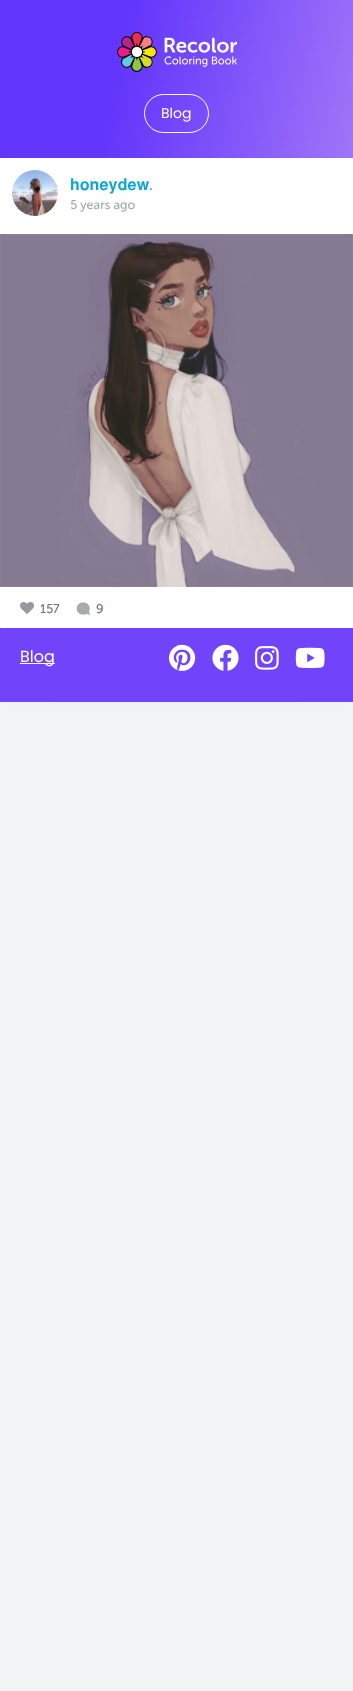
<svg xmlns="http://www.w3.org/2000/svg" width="353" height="1691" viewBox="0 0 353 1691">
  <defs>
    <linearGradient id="g1" gradientUnits="userSpaceOnUse" x1="-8" y1="40" x2="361" y2="118"><stop offset="0.35" stop-color="#6336fc"/><stop offset="1" stop-color="#a075f8"/></linearGradient>
    <filter id="blur1" x="-50%" y="-200%" width="200%" height="500%"><feGaussianBlur stdDeviation="30"/></filter>
  </defs>
  <rect width="100%" height="100%" fill="#f1f4f5"/>
  <rect x="0" y="0" width="353" height="158" fill="url(#g1)"/>
  <image x="117" y="32" width="120" height="40" href="img1.png"/>
  <rect x="20" y="218" width="313" height="430" fill="#0e3365" fill-opacity="0.3" filter="url(#blur1)"/>
  <rect x="144.5" y="94.5" width="64" height="38" rx="19" fill="none" stroke="#ffffff"/>
  <text x="161" y="118" font-family="Poppins" font-size="14" fill="#ffffff">Blog</text>
  <rect x="0" y="158" width="353" height="470" rx="2" fill="#ffffff"/>
  <image x="12" y="170" width="46" height="46" href="img2.png"/>
  <text x="70" y="190" font-family="FreeSans" font-size="16" fill="#0ba7d5">𝐡𝐨𝐧𝐞𝐲𝐝𝐞𝐰</text>
  <text x="149" y="190" font-family="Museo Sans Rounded" font-size="16" fill="#0ba7d5">.</text>
  <text x="70" y="209" font-family="Museo Sans Rounded" font-size="12.75" fill="#a2a8b5">5 years ago</text>
  <image x="0" y="234" width="353" height="353" href="img3.png"/>
  <image x="20" y="602" width="14" height="12" href="img4.png"/>
  <text x="40" y="613" font-family="Museo Sans Rounded" font-size="12.75" fill="#6b7386">157</text>
  <image x="76" y="602" width="14" height="13" href="img5.png"/>
  <text x="96" y="613" font-family="Museo Sans Rounded" font-size="12.75" fill="#6b7386">9</text>
  <rect x="0" y="628" width="353" height="74" fill="#7144fb"/>
  <rect x="20" y="663" width="35" height="1" fill="#ffffff"/>
  <text x="20" y="662" font-family="Poppins" font-size="16" fill="#ffffff">Blog</text>
  <image x="169" y="644" width="27" height="27" href="img6.png"/>
  <image x="212" y="644" width="27" height="27" href="img7.png"/>
  <image x="255" y="646" width="24" height="24" href="img8.png"/>
  <image x="295" y="647" width="30" height="21" href="img9.png"/>
</svg>
